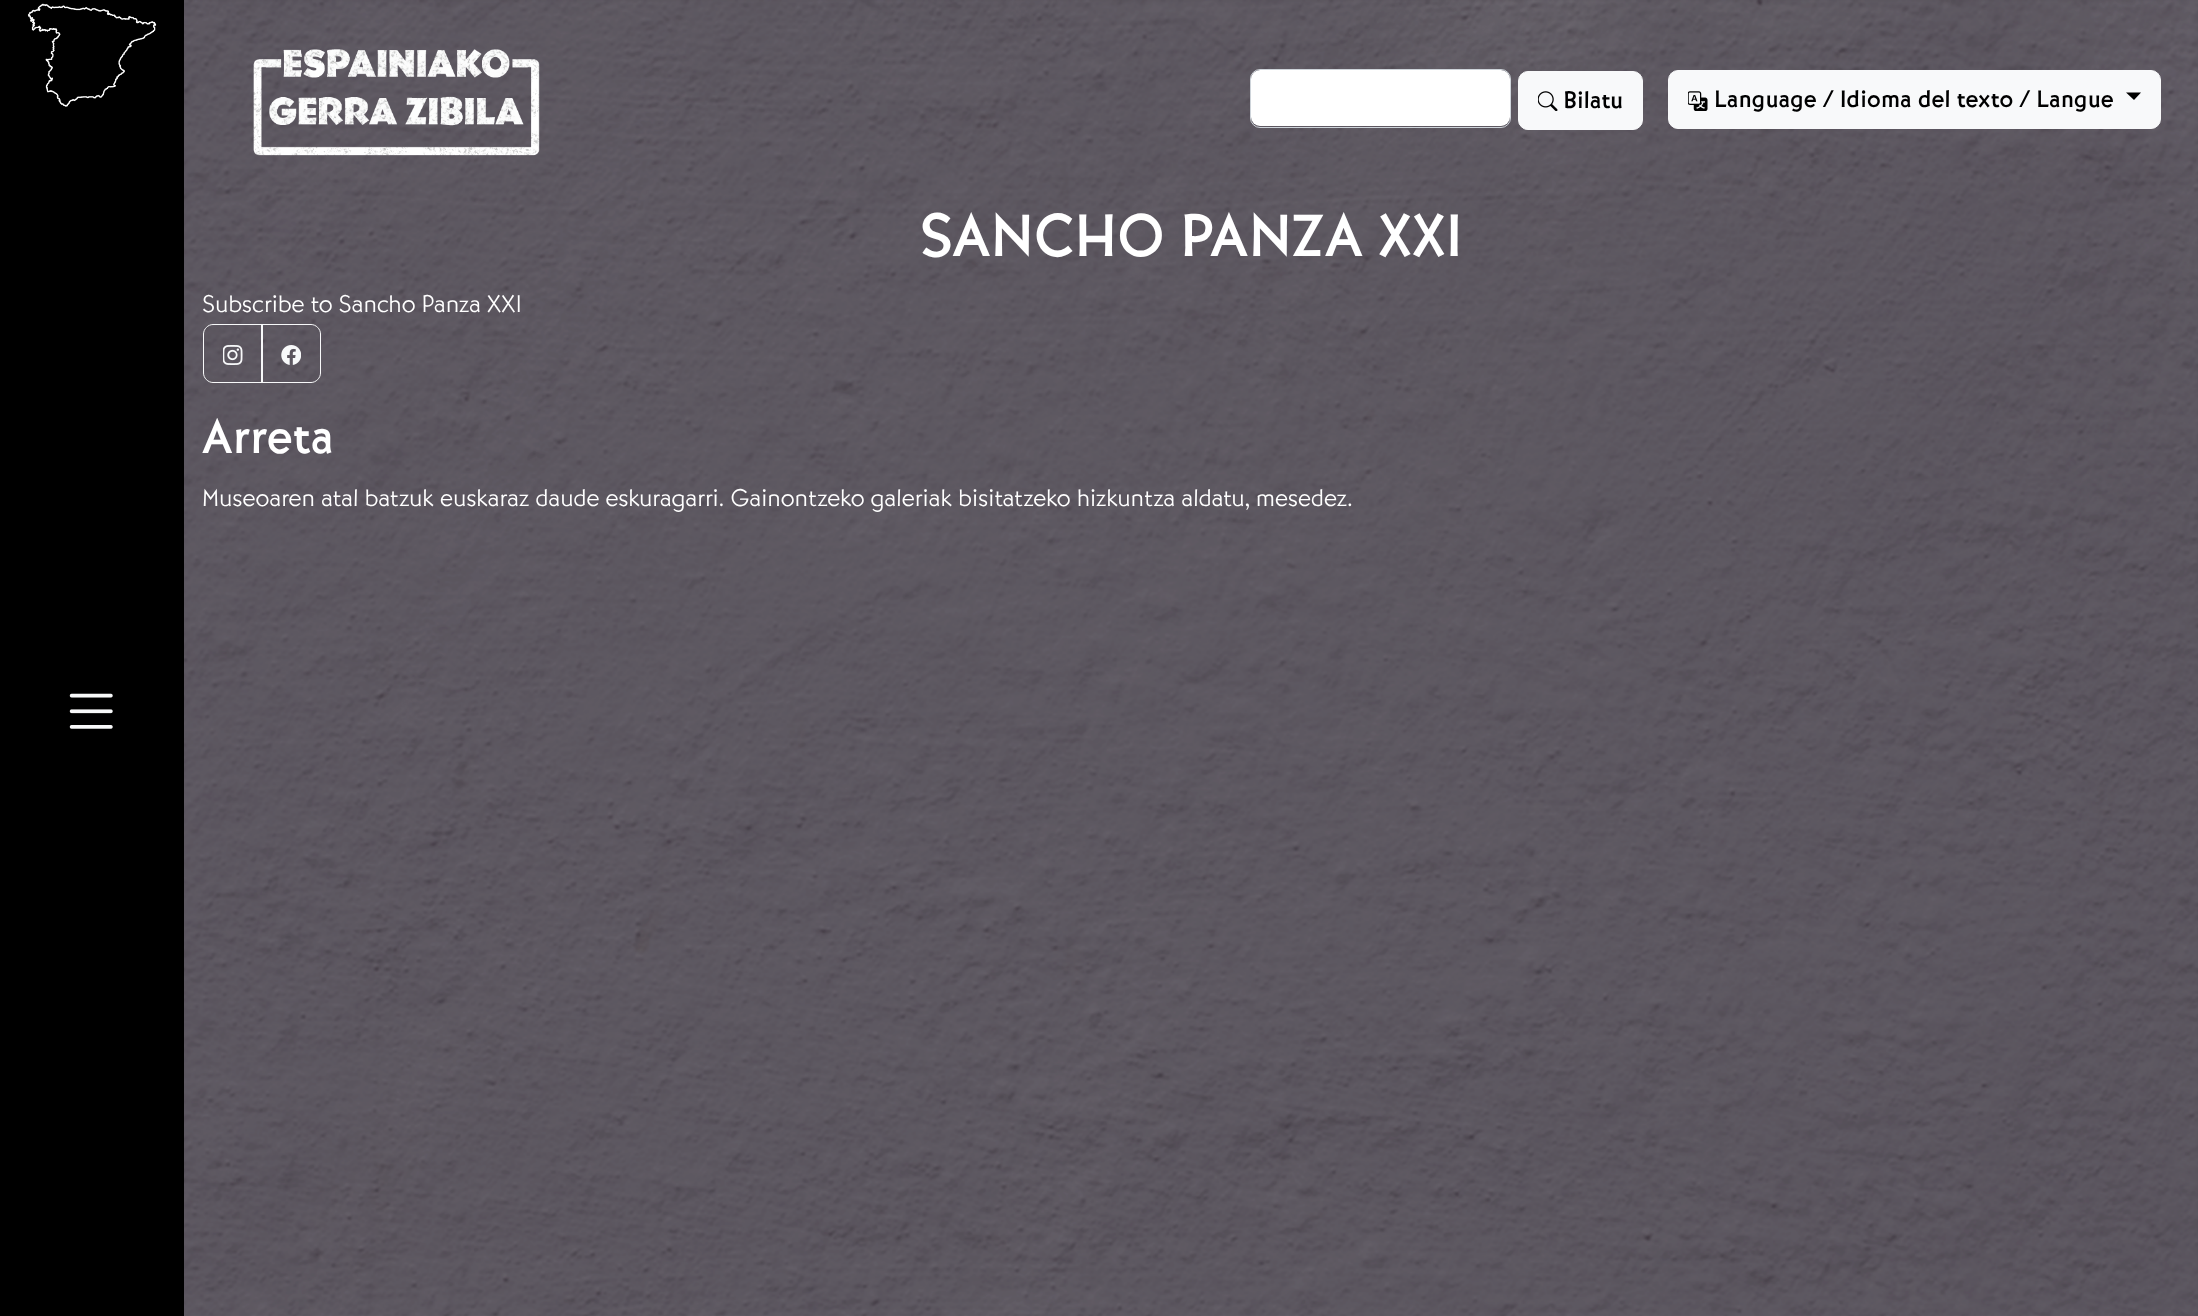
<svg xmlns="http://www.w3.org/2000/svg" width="2198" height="1316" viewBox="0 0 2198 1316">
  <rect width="100%" height="100%" fill="#ffffff"/>
  <image x="184" y="0" width="2014" height="1316" href="img1.png"/>
  <rect x="0" y="0" width="184" height="1316" fill="#000000"/>
  <image x="27" y="3" width="130" height="104" href="img2.png"/>
  <image x="69" y="693" width="44" height="36" href="img3.png"/>
  <image x="253" y="49" width="287" height="107" href="img4.png"/>
  <rect x="1251" y="70" width="259" height="56" rx="9" fill="#ffffff"/>
  <rect x="1250.5" y="69.5" width="260" height="58" rx="9.5" fill="none" stroke="#ced4da"/>
  <rect x="1518.5" y="71.5" width="124" height="58" rx="9.5" fill="#f8f9fa" stroke="#f8f9fa"/>
  <image x="1538" y="91" width="20" height="20" href="img5.png"/>
  <text x="1563" y="108" font-family="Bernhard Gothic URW" font-size="25" font-weight="500" fill="#000000">Bilatu</text>
  <rect x="1668.5" y="70.5" width="492" height="58" rx="9.5" fill="#f8f9fa" stroke="#f8f9fa"/>
  <image x="1688" y="91" width="20" height="20" href="img6.png"/>
  <text x="1714" y="107" font-family="Bernhard Gothic URW" font-size="25" font-weight="500" fill="#000000">Language / Idioma del texto / Langue</text>
  <path d="M2126 92.5H2141L2134 100Z" fill="#000000"/>
  <text x="920" y="256" font-family="Bernhard Gothic URW" font-size="62.5" font-weight="500" fill="#ffffff">SANCHO PANZA XXI</text>
  <text x="202" y="312" font-family="Bernhard Gothic URW" font-size="25" font-weight="300" fill="#ffffff">Subscribe to Sancho Panza XXI</text>
  <path d="M213 324.5H262.5V382.5H213C208 382.5 203.5 378 203.5 373V334C203.5 329 208 324.5 213 324.5Z" fill="none" stroke="#f8f9fa"/>
  <image x="223" y="345" width="20" height="20" href="img7.png"/>
  <path d="M261.5 324.5H311C316 324.5 320.5 329 320.5 334V373C320.5 378 316 382.5 311 382.5H261.5Z" fill="none" stroke="#f8f9fa"/>
  <image x="281" y="345" width="20" height="20" href="img8.png"/>
  <text x="202" y="453" font-family="Bernhard Gothic URW" font-size="50" font-weight="500" fill="#ffffff">Arreta</text>
  <text x="202" y="506" font-family="Bernhard Gothic URW" font-size="25" font-weight="300" fill="#ffffff">Museoaren atal batzuk euskaraz daude eskuragarri. Gainontzeko galeriak bisitatzeko hizkuntza aldatu, mesedez.</text>
</svg>
